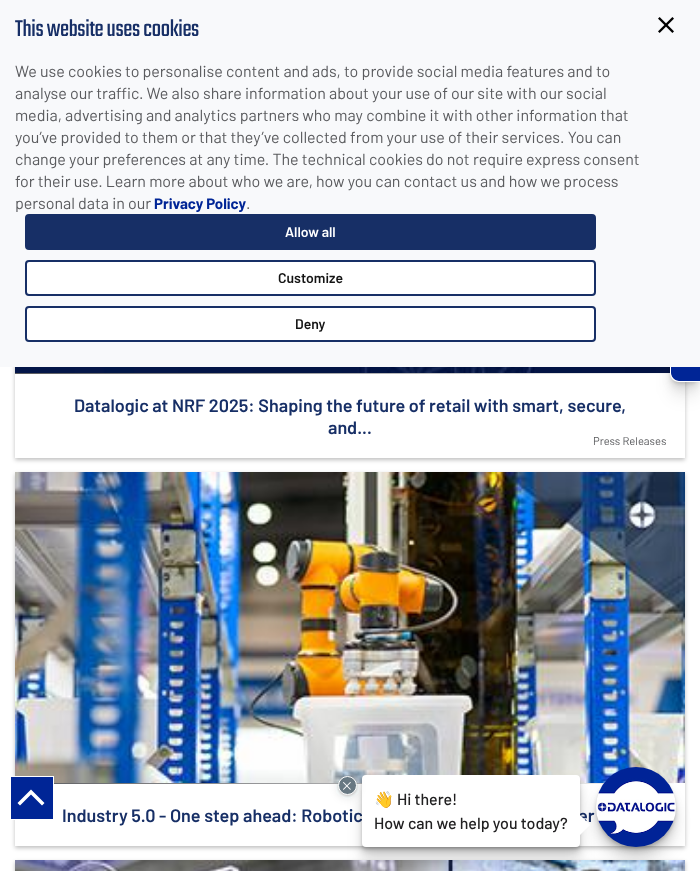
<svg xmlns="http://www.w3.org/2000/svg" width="700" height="871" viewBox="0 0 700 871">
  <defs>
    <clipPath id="clip1"><path d="M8 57H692V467H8ZM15 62H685V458H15Z" clip-rule="evenodd"/></clipPath>
    <filter id="blur1" x="-50%" y="-200%" width="200%" height="500%"><feGaussianBlur stdDeviation="2"/></filter>
    <filter id="blur2" x="-50%" y="-200%" width="200%" height="500%"><feGaussianBlur stdDeviation="8"/></filter>
    <filter id="blur3" x="-50%" y="-200%" width="200%" height="500%"><feGaussianBlur stdDeviation="4"/></filter>
    <filter id="blur4" x="-50%" y="-200%" width="200%" height="500%"><feGaussianBlur stdDeviation="1"/></filter>
    <clipPath id="clip2"><path d="M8 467H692V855H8ZM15 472H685V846H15Z" clip-rule="evenodd"/></clipPath>
    <filter id="blur5" x="-50%" y="-200%" width="200%" height="500%"><feGaussianBlur stdDeviation="5"/></filter>
  </defs>
  <rect width="100%" height="100%" fill="#ffffff"/>
  <g clip-path="url(#clip1)">
    <rect x="15" y="64" width="670" height="396" fill="#000000" fill-opacity="0.25" filter="url(#blur1)"/>
  </g>
  <image x="15" y="367" width="655" height="6" href="img2.png"/>
  <image x="15" y="373" width="657" height="1" href="img3.png"/>
  <rect x="670" y="338" width="30" height="60" rx="9" fill="#000000" fill-opacity="0.07" filter="url(#blur2)"/>
  <rect x="670" y="330" width="30" height="60" rx="9" fill="#000000" fill-opacity="0.07" filter="url(#blur3)"/>
  <rect x="670" y="326" width="30" height="60" rx="9" fill="#000000" fill-opacity="0.07" filter="url(#blur1)"/>
  <rect x="670" y="324" width="30" height="60" rx="9" fill="#000000" fill-opacity="0.07" filter="url(#blur4)"/>
  <path d="M679 323H700V381H679C674.5 381 671 377.5 671 373V331C671 326.5 674.5 323 679 323Z" fill="#002596"/>
  <path d="M679 322H700V382H679C674 382 670 378 670 373V331C670 326 674 322 679 322ZM679 323H700V381H679C675 381 671 377 671 373V331C671 327 675 323 679 323Z" fill="#ffffff" fill-rule="evenodd"/>
  <rect x="0" y="0" width="700" height="367" fill="#f8f9fb"/>
  <text x="15" y="36" font-family="Teko" font-size="25" font-weight="300" letter-spacing="-0.3" fill="#172f66">This website uses cookies</text>
  <text x="15" y="77" font-family="Barlow" font-size="16" fill="#5a5b5e">We use cookies to personalise content and ads, to provide social media features and to</text>
  <text x="15" y="99" font-family="Barlow" font-size="16" fill="#5a5b5e">analyse our traffic. We also share information about your use of our site with our social</text>
  <text x="15" y="121" font-family="Barlow" font-size="16" fill="#5a5b5e">media, advertising and analytics partners who may combine it with other information that</text>
  <text x="15" y="143" font-family="Barlow" font-size="16" fill="#5a5b5e">you’ve provided to them or that they’ve collected from your use of their services. You can</text>
  <text x="15" y="165" font-family="Barlow" font-size="16" fill="#5a5b5e">change your preferences at any time. The technical cookies do not require express consent</text>
  <text x="15" y="187" font-family="Barlow" font-size="16" fill="#5a5b5e">for their use. Learn more about who we are, how you can contact us and how we process</text>
  <text x="15" y="209" font-family="Barlow" font-size="16" fill="#5a5b5e">personal data in our</text>
  <text x="154" y="209" font-family="Barlow" font-size="15" font-weight="bold" fill="#002596">Privacy Policy</text>
  <text x="246" y="209" font-family="Barlow" font-size="16" fill="#5a5b5e">.</text>
  <rect x="26" y="215" width="569" height="34" rx="3" fill="#172f66" stroke="#172f66" stroke-width="2"/>
  <text x="285" y="237" font-family="Barlow" font-size="14" font-weight="600" fill="#ffffff">Allow all</text>
  <rect x="26" y="261" width="569" height="34" rx="3" fill="#ffffff" stroke="#172f66" stroke-width="2"/>
  <text x="278" y="283" font-family="Barlow" font-size="14" font-weight="600" fill="#141414">Customize</text>
  <rect x="26" y="307" width="569" height="34" rx="3" fill="#ffffff" stroke="#172f66" stroke-width="2"/>
  <text x="295" y="329" font-family="Barlow" font-size="14" font-weight="600" fill="#141414">Deny</text>
  <image x="658" y="17" width="16" height="16" href="img1.png"/>
  <g clip-path="url(#clip2)">
    <rect x="15" y="474" width="670" height="374" fill="#000000" fill-opacity="0.25" filter="url(#blur1)"/>
  </g>
  <image x="15" y="472" width="670" height="311" href="img4.png"/>
  <rect x="10.5" y="776.5" width="43" height="43" fill="#002596" stroke="#ffffff"/>
  <path d="M31 789.5L17.5 803L20 805.5L31 794.5L42 805.5L44.5 803Z" fill="#ffffff" fill-rule="evenodd"/>
  <text x="74" y="412" font-family="Barlow" font-size="18" font-weight="600" fill="#172f66">Datalogic at NRF 2025: Shaping the future of retail with smart, secure,</text>
  <text x="328" y="434" font-family="Barlow" font-size="18" font-weight="600" fill="#172f66">and...</text>
  <text x="593" y="445" font-family="Barlow" font-size="11.25" fill="#5a5b5e">Press Releases</text>
  <image x="54" y="783" width="620" height="1" href="img5.png"/>
  <text x="62" y="822" font-family="Barlow" font-size="18" font-weight="600" fill="#172f66">Industry 5.0 - One step ahead: Robotic</text>
  <text x="578" y="822" font-family="Barlow" font-size="18" font-weight="600" fill="#172f66">er</text>
  <rect x="15" y="862" width="670" height="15" fill="#000000" fill-opacity="0.25" filter="url(#blur1)"/>
  <image x="15" y="860" width="670" height="11" href="img6.png"/>
  <rect x="596" y="783" width="80" height="80" rx="40" fill="#000000" fill-opacity="0.1" filter="url(#blur2)"/>
  <rect x="596" y="775" width="80" height="80" rx="40" fill="#000000" fill-opacity="0.1" filter="url(#blur3)"/>
  <rect x="596" y="771" width="80" height="80" rx="40" fill="#000000" fill-opacity="0.1" filter="url(#blur1)"/>
  <rect x="596" y="769" width="80" height="80" rx="40" fill="#000000" fill-opacity="0.1" filter="url(#blur4)"/>
  <image x="596" y="767" width="80" height="80" href="img8.png"/>
  <rect x="362" y="791" width="218" height="72" rx="4" fill="#000000" fill-opacity="0.1" filter="url(#blur2)"/>
  <rect x="362" y="783" width="218" height="72" rx="4" fill="#000000" fill-opacity="0.1" filter="url(#blur3)"/>
  <rect x="362" y="779" width="218" height="72" rx="4" fill="#000000" fill-opacity="0.1" filter="url(#blur1)"/>
  <rect x="362" y="777" width="218" height="72" rx="4" fill="#000000" fill-opacity="0.1" filter="url(#blur4)"/>
  <rect x="362" y="775" width="218" height="72" rx="4" fill="#ffffff"/>
  <rect x="338" y="777" width="19" height="19" rx="9.5" fill="#000000" fill-opacity="0.2" filter="url(#blur4)"/>
  <rect x="338" y="778" width="19" height="19" rx="9.5" fill="#353f45" fill-opacity="0.15" filter="url(#blur5)"/>
  <circle cx="347.5" cy="785.5" r="9" fill="#687882" stroke="#ffffff"/>
  <image x="343" y="782" width="8" height="8" href="img7.png"/>
  <text x="374" y="805" font-family="Noto Color Emoji" font-size="16" fill="#212021">👋</text>
  <text x="397" y="805" font-family="Barlow" font-size="16" font-weight="500" fill="#212021">Hi there!</text>
  <text x="374" y="829" font-family="Barlow" font-size="16" font-weight="500" fill="#212021">How can we help you today?</text>
  <path d="M580 835V815L590 825Z" fill="#ffffff"/>
</svg>
